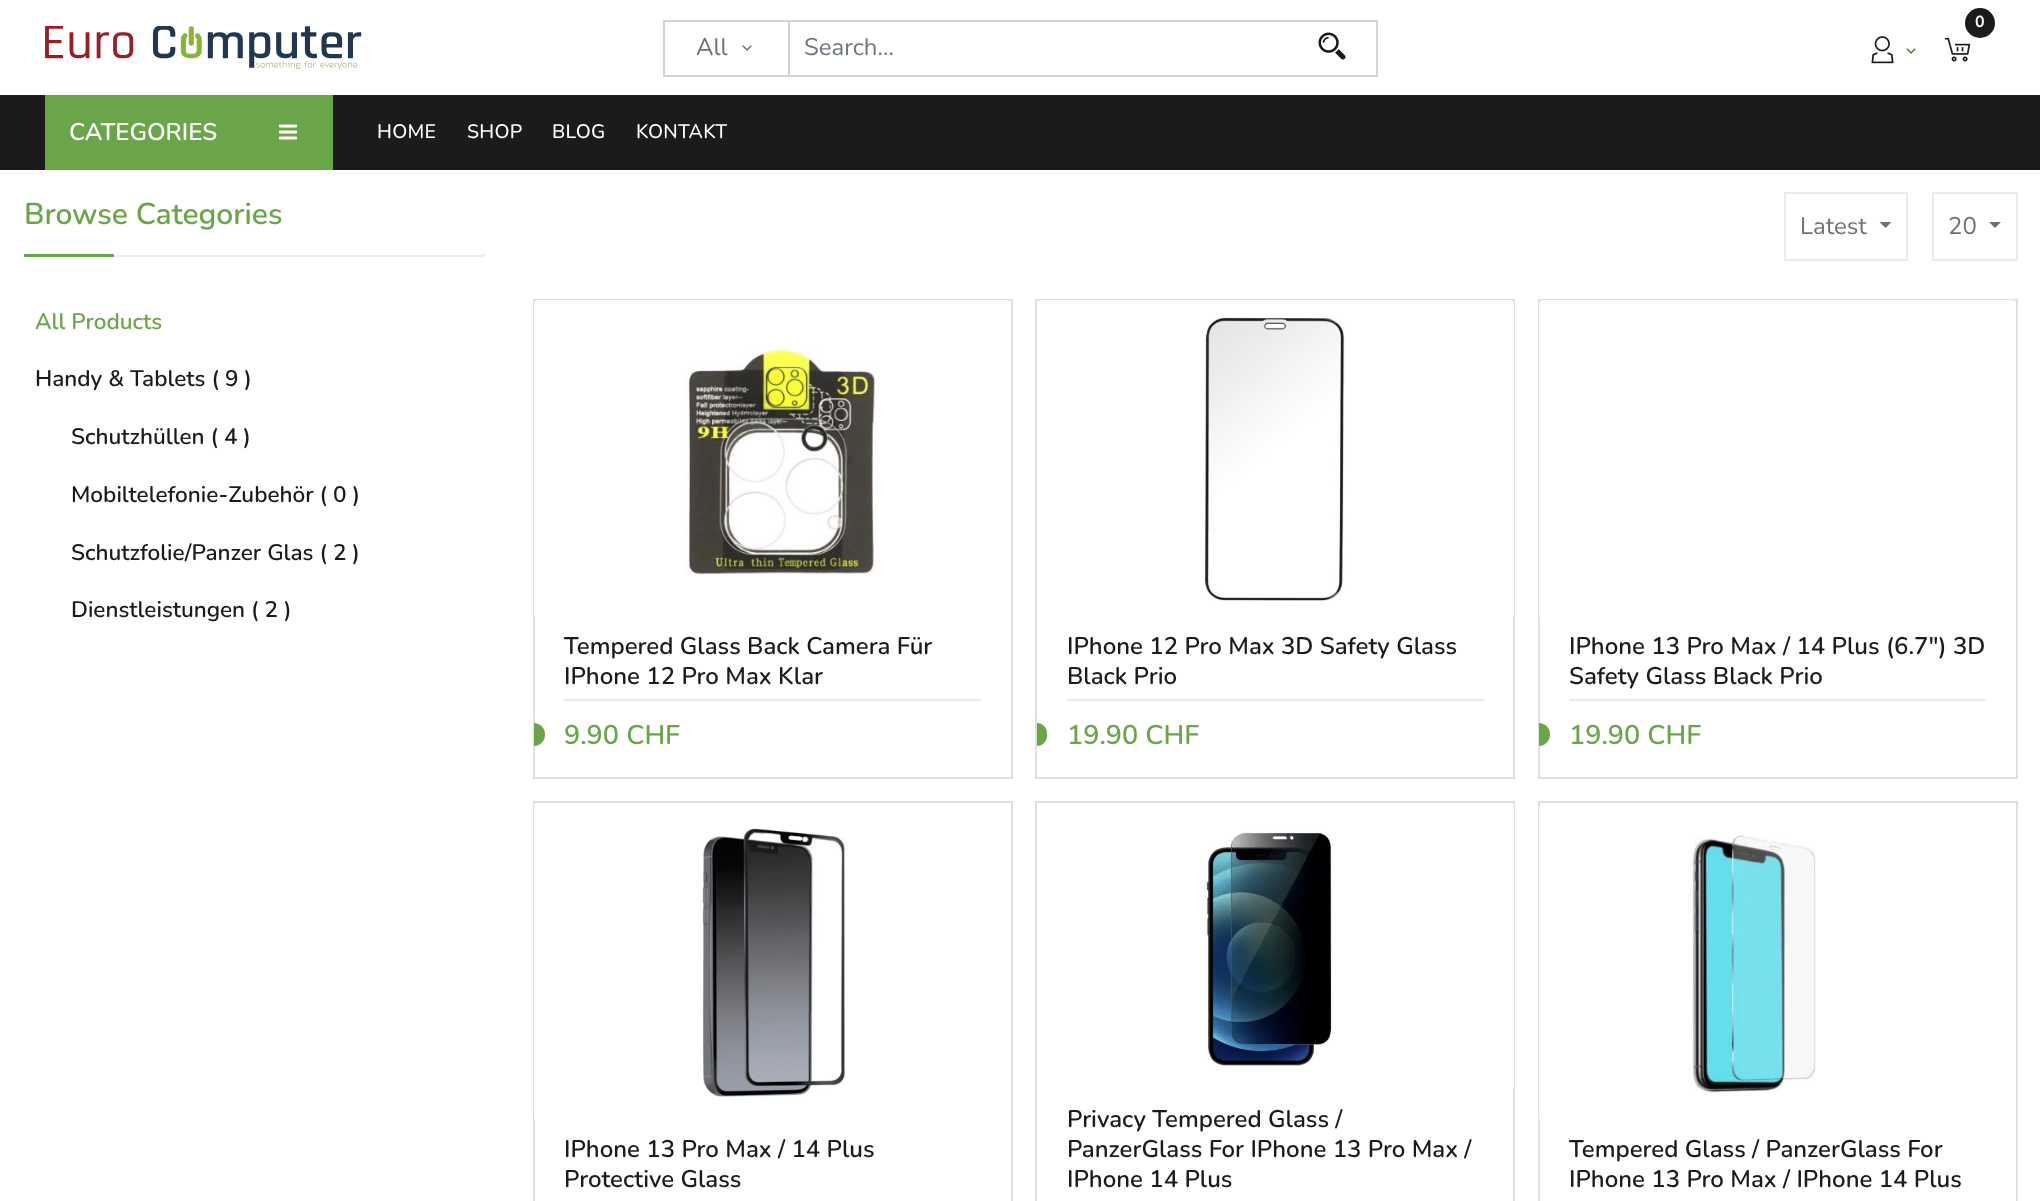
<svg xmlns="http://www.w3.org/2000/svg" width="2040" height="1201" viewBox="0 0 2040 1201">
  <rect width="100%" height="100%" fill="#ffffff"/>
  <image x="1944" y="37" width="27" height="25" href="img1.png"/>
  <circle cx="1980" cy="23" r="15" fill="#1b1b1b"/>
  <text x="1975" y="27" font-family="Nunito" font-size="16" font-weight="bold" fill="#ffffff">0</text>
  <image x="1871" y="36" width="23" height="28" href="img2.png"/>
  <image x="1906" y="48" width="10" height="6" href="img3.png"/>
  <image x="45" y="26" width="317" height="43" href="img4.png"/>
  <rect x="663" y="20" width="714" height="2" fill="#ced4da"/>
  <rect x="663" y="75" width="627" height="2" fill="#ced4da"/>
  <rect x="663" y="20" width="2" height="57" fill="#ced4da"/>
  <text x="696" y="55" font-family="Nunito" font-size="24" fill="#6d7175">All</text>
  <image x="742" y="45" width="10" height="6" href="img5.png"/>
  <rect x="788" y="20" width="2" height="57" fill="#ced4da"/>
  <text x="804" y="55" font-family="Nunito" font-size="24" fill="#6c757d">Search...</text>
  <rect x="1376" y="20" width="2" height="57" fill="#ced4da"/>
  <rect x="1289" y="75" width="88" height="2" fill="#ced4da"/>
  <image x="1318" y="32" width="28" height="28" href="img6.png"/>
  <rect x="0" y="95" width="2040" height="75" fill="#1b1b1b"/>
  <rect x="45" y="95" width="288" height="75" fill="#6ba54a"/>
  <text x="69" y="140" font-family="Nunito" font-size="24" font-weight="600" fill="#ffffff">CATEGORIES</text>
  <image x="279" y="124" width="18" height="16" href="img7.png"/>
  <text x="377" y="138" font-family="Nunito" font-size="19.5" font-weight="500" letter-spacing="0.25" fill="#ffffff">HOME</text>
  <text x="467" y="138" font-family="Nunito" font-size="19.5" font-weight="500" letter-spacing="0.25" fill="#ffffff">SHOP</text>
  <text x="552" y="138" font-family="Nunito" font-size="19.5" font-weight="500" letter-spacing="0.25" fill="#ffffff">BLOG</text>
  <text x="636" y="138" font-family="Nunito" font-size="19.5" font-weight="500" letter-spacing="0.25" fill="#ffffff">KONTAKT</text>
  <path d="M485 254C484 255 483 256 481.5 256H28.5C27 256 26 255 25 254" fill="none" stroke="#e5e5e5" stroke-width="1.5"/>
  <text x="24" y="224" font-family="Nunito" font-size="30" font-weight="600" fill="#6ba54a">Browse Categories</text>
  <rect x="24" y="254" width="90" height="3" fill="#6ba54a"/>
  <text x="35" y="329" font-family="Nunito" font-size="22.5" font-weight="600" fill="#6ba54a">All Products</text>
  <text x="35" y="386" font-family="Nunito" font-size="22.5" font-weight="600" fill="#1b1b1b">Handy &amp; Tablets ( 9 )</text>
  <text x="71" y="444" font-family="Nunito" font-size="22.5" font-weight="600" fill="#1b1b1b">Schutzhüllen ( 4 )</text>
  <text x="71" y="502" font-family="Nunito" font-size="22.5" font-weight="600" fill="#1b1b1b">Mobiltelefonie-Zubehör ( 0 )</text>
  <text x="71" y="560" font-family="Nunito" font-size="22.5" font-weight="600" fill="#1b1b1b">Schutzfolie/Panzer Glas ( 2 )</text>
  <text x="71" y="617" font-family="Nunito" font-size="22.5" font-weight="600" fill="#1b1b1b">Dienstleistungen ( 2 )</text>
  <rect x="1785" y="193" width="122" height="67" fill="none" stroke="#ebebeb" stroke-width="2"/>
  <text x="1800" y="234" font-family="Nunito" font-size="24" fill="#6d7175">Latest</text>
  <path d="M1879.5 222H1891.5L1885.5 228Z" fill="#6d7175"/>
  <rect x="1933" y="193" width="84" height="67" fill="none" stroke="#ebebeb" stroke-width="2"/>
  <text x="1948" y="234" font-family="Nunito" font-size="24" fill="#6d7175">20</text>
  <path d="M1989 222H2001L1995 228Z" fill="#6d7175"/>
  <rect x="534" y="300" width="478" height="478" fill="none" stroke="#dfdfdf" stroke-width="2"/>
  <path d="M539 300H1006C1009 300 1011 302 1011 305V617H534V305C534 302 536 300 539 300Z" fill="#ffffff" fill-opacity="0.9"/>
  <image x="684" y="346" width="192" height="229" href="img8.png"/>
  <text x="564" y="654" font-family="Nunito" font-size="24" font-weight="600" fill="#1b1b1b">Tempered Glass Back Camera Für</text>
  <text x="564" y="684" font-family="Nunito" font-size="24" font-weight="600" fill="#1b1b1b">IPhone 12 Pro Max Klar</text>
  <rect x="564" y="699" width="417" height="2" fill="#ebebeb"/>
  <path d="M534 723C540 723 545 728 545 734V735C545 741 540 746 534 746Z" fill="#6ba54a"/>
  <text x="564" y="744" font-family="Nunito" font-size="27" font-weight="600" fill="#6ba54a">9.90 CHF</text>
  <rect x="1036" y="300" width="478" height="478" fill="none" stroke="#dfdfdf" stroke-width="2"/>
  <path d="M1042 300H1509C1512 300 1514 302 1514 305V617H1037V305C1037 302 1039 300 1042 300Z" fill="#ffffff" fill-opacity="0.9"/>
  <image x="1204" y="317" width="141" height="284" href="img9.png"/>
  <text x="1067" y="654" font-family="Nunito" font-size="24" font-weight="600" fill="#1b1b1b">IPhone 12 Pro Max 3D Safety Glass</text>
  <text x="1067" y="684" font-family="Nunito" font-size="24" font-weight="600" fill="#1b1b1b">Black Prio</text>
  <rect x="1067" y="699" width="417" height="2" fill="#ebebeb"/>
  <path d="M1037 723C1042.5 723 1047 727.5 1047 733V736C1047 741.5 1042.5 746 1037 746Z" fill="#6ba54a"/>
  <text x="1067" y="744" font-family="Nunito" font-size="27" font-weight="600" fill="#6ba54a">19.90 CHF</text>
  <rect x="1539" y="300" width="478" height="478" fill="none" stroke="#dfdfdf" stroke-width="2"/>
  <path d="M1544 300H2011C2014 300 2016 302 2016 305V617H1539V305C1539 302 1541 300 1544 300Z" fill="#ffffff" fill-opacity="0.9"/>
  <text x="1569" y="654" font-family="Nunito" font-size="24" font-weight="600" fill="#1b1b1b">IPhone 13 Pro Max / 14 Plus (6.7″) 3D</text>
  <text x="1569" y="684" font-family="Nunito" font-size="24" font-weight="600" fill="#1b1b1b">Safety Glass Black Prio</text>
  <rect x="1569" y="699" width="417" height="2" fill="#ebebeb"/>
  <path d="M1539 723C1545 723 1550 728 1550 734V735C1550 741 1545 746 1539 746Z" fill="#6ba54a"/>
  <text x="1569" y="744" font-family="Nunito" font-size="27" font-weight="600" fill="#6ba54a">19.90 CHF</text>
  <rect x="534" y="802" width="478" height="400" fill="none" stroke="#dfdfdf" stroke-width="2"/>
  <path d="M539 803H1006C1009 803 1011 805 1011 808V1119H534V808C534 805 536 803 539 803Z" fill="#ffffff" fill-opacity="0.9"/>
  <image x="702" y="828" width="143" height="269" href="img10.png"/>
  <text x="564" y="1157" font-family="Nunito" font-size="24" font-weight="600" fill="#1b1b1b">IPhone 13 Pro Max / 14 Plus</text>
  <text x="564" y="1187" font-family="Nunito" font-size="24" font-weight="600" fill="#1b1b1b">Protective Glass</text>
  <rect x="1036" y="802" width="478" height="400" fill="none" stroke="#dfdfdf" stroke-width="2"/>
  <path d="M1042 803H1509C1512 803 1514 805 1514 808V1089H1037V808C1037 805 1039 803 1042 803Z" fill="#ffffff" fill-opacity="0.9"/>
  <image x="1204" y="830" width="130" height="239" href="img11.png"/>
  <text x="1067" y="1127" font-family="Nunito" font-size="24" font-weight="600" fill="#1b1b1b">Privacy Tempered Glass /</text>
  <text x="1067" y="1157" font-family="Nunito" font-size="24" font-weight="600" fill="#1b1b1b">PanzerGlass For IPhone 13 Pro Max /</text>
  <text x="1067" y="1187" font-family="Nunito" font-size="24" font-weight="600" fill="#1b1b1b">IPhone 14 Plus</text>
  <rect x="1539" y="802" width="478" height="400" fill="none" stroke="#dfdfdf" stroke-width="2"/>
  <path d="M1544 803H2011C2014 803 2016 805 2016 808V1119H1539V808C1539 805 1541 803 1544 803Z" fill="#ffffff" fill-opacity="0.9"/>
  <image x="1689" y="833" width="127" height="262" href="img12.png"/>
  <text x="1569" y="1157" font-family="Nunito" font-size="24" font-weight="600" fill="#1b1b1b">Tempered Glass / PanzerGlass For</text>
  <text x="1569" y="1187" font-family="Nunito" font-size="24" font-weight="600" fill="#1b1b1b">IPhone 13 Pro Max / IPhone 14 Plus</text>
</svg>
